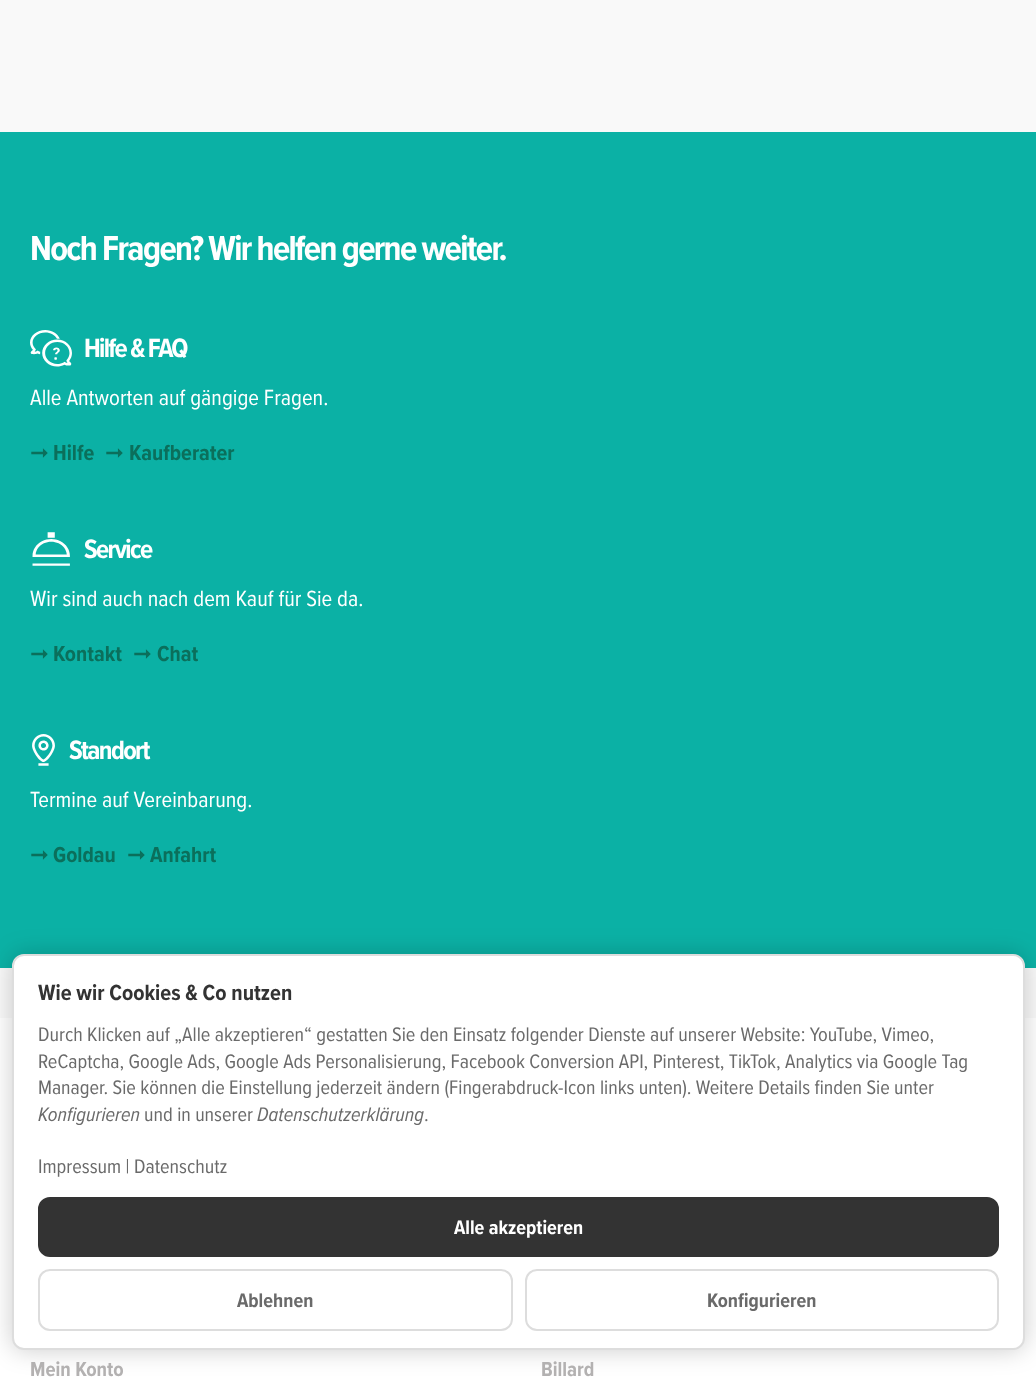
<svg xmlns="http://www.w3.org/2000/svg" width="1036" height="1397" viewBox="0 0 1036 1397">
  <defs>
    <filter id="blur1" x="-50%" y="-200%" width="200%" height="500%"><feGaussianBlur stdDeviation="12"/></filter>
  </defs>
  <rect width="100%" height="100%" fill="#f9f9f9"/>
  <rect x="0" y="132" width="1036" height="836" fill="#0bb1a5"/>
  <text x="30" y="260" font-family="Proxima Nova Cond" font-size="36" font-weight="bold" letter-spacing="-1.65" fill="#ffffff">Noch Fragen? Wir helfen gerne weiter.</text>
  <image x="30" y="330" width="42" height="37" href="img1.png"/>
  <text x="84" y="357" font-family="Proxima Nova Cond" font-size="27.5" font-weight="bold" letter-spacing="-1.65" fill="#ffffff">Hilfe &amp; FAQ</text>
  <text x="30" y="405" font-family="Proxima Nova Cond" font-size="22.75" fill="#ffffff">Alle Antworten auf gängige Fragen.</text>
  <text x="30" y="460" font-family="DejaVu Sans" font-size="22.5" fill="#0b6f5b">➞</text>
  <text x="53" y="460" font-family="Proxima Nova Cond" font-size="22.5" font-weight="bold" fill="#0b6f5b">Hilfe</text>
  <text x="105" y="460" font-family="DejaVu Sans" font-size="22.5" fill="#0b6f5b">➞</text>
  <text x="129" y="460" font-family="Proxima Nova Cond" font-size="22.5" font-weight="bold" fill="#0b6f5b">Kaufberater</text>
  <image x="32" y="532" width="38" height="34" href="img2.png"/>
  <text x="84" y="558" font-family="Proxima Nova Cond" font-size="27.5" font-weight="bold" letter-spacing="-1.65" fill="#ffffff">Service</text>
  <text x="30" y="606" font-family="Proxima Nova Cond" font-size="22.75" fill="#ffffff">Wir sind auch nach dem Kauf für Sie da.</text>
  <text x="30" y="661" font-family="DejaVu Sans" font-size="22.5" fill="#0b6f5b">➞</text>
  <text x="53" y="661" font-family="Proxima Nova Cond" font-size="22.5" font-weight="bold" fill="#0b6f5b">Kontakt</text>
  <text x="133" y="661" font-family="DejaVu Sans" font-size="22.5" fill="#0b6f5b">➞</text>
  <text x="157" y="661" font-family="Proxima Nova Cond" font-size="22.5" font-weight="bold" fill="#0b6f5b">Chat</text>
  <image x="32" y="734" width="23" height="32" href="img3.png"/>
  <text x="69" y="759" font-family="Proxima Nova Cond" font-size="27.5" font-weight="bold" letter-spacing="-1.65" fill="#ffffff">Standort</text>
  <text x="30" y="807" font-family="Proxima Nova Cond" font-size="22.75" fill="#ffffff">Termine auf Vereinbarung.</text>
  <text x="30" y="862" font-family="DejaVu Sans" font-size="22.5" fill="#0b6f5b">➞</text>
  <text x="53" y="862" font-family="Proxima Nova Cond" font-size="22.5" font-weight="bold" fill="#0b6f5b">Goldau</text>
  <text x="127" y="862" font-family="DejaVu Sans" font-size="22.5" fill="#0b6f5b">➞</text>
  <text x="150" y="862" font-family="Proxima Nova Cond" font-size="22.5" font-weight="bold" fill="#0b6f5b">Anfahrt</text>
  <rect x="0" y="1018" width="1036" height="379" fill="#ffffff"/>
  <rect x="12" y="954" width="1013" height="396" rx="12" fill="#000000" fill-opacity="0.2" filter="url(#blur1)"/>
  <rect x="13" y="955" width="1011" height="394" rx="11" fill="#ffffff" stroke="#dddddd" stroke-width="2"/>
  <text x="38" y="1000" font-family="Proxima Nova Cond" font-size="22.75" font-weight="bold" fill="#333333">Wie wir Cookies &amp; Co nutzen</text>
  <text x="38" y="1041" font-family="Proxima Nova Cond" font-size="20.4" fill="#6a6a6a">Durch Klicken auf „Alle akzeptieren“ gestatten Sie den Einsatz folgender Dienste auf unserer Website: YouTube, Vimeo,</text>
  <text x="38" y="1068" font-family="Proxima Nova Cond" font-size="20.4" fill="#6a6a6a">ReCaptcha, Google Ads, Google Ads Personalisierung, Facebook Conversion API, Pinterest, TikTok, Analytics via Google Tag</text>
  <text x="38" y="1094" font-family="Proxima Nova Cond" font-size="20.4" fill="#6a6a6a">Manager. Sie können die Einstellung jederzeit ändern (Fingerabdruck-Icon links unten). Weitere Details finden Sie unter</text>
  <text x="38" y="1121" font-family="Proxima Nova Cond" font-size="20.4" font-style="italic" fill="#6a6a6a">Konfigurieren</text>
  <text x="144" y="1121" font-family="Proxima Nova Cond" font-size="20.4" fill="#6a6a6a">und in unserer</text>
  <text x="257" y="1121" font-family="Proxima Nova Cond" font-size="20.4" font-style="italic" fill="#6a6a6a">Datenschutzerklärung</text>
  <text x="424" y="1121" font-family="Proxima Nova Cond" font-size="20.4" fill="#6a6a6a">.</text>
  <text x="38" y="1173" font-family="Proxima Nova Cond" font-size="20.4" fill="#6a6a6a">Impressum | Datenschutz</text>
  <rect x="39" y="1198" width="959" height="58" rx="11" fill="#333333" stroke="#333333" stroke-width="2"/>
  <text x="454" y="1234" font-family="Proxima Nova Cond" font-size="20.4" font-weight="bold" fill="#ffffff">Alle akzeptieren</text>
  <rect x="39" y="1270" width="473" height="60" rx="11" fill="none" stroke="#dddddd" stroke-width="2"/>
  <text x="237" y="1307" font-family="Proxima Nova Cond" font-size="20.4" font-weight="bold" fill="#6a6a6a">Ablehnen</text>
  <rect x="526" y="1270" width="472" height="60" rx="11" fill="none" stroke="#dddddd" stroke-width="2"/>
  <text x="707" y="1307" font-family="Proxima Nova Cond" font-size="20.4" font-weight="bold" fill="#6a6a6a">Konfigurieren</text>
  <text x="30" y="1376" font-family="Proxima Nova Cond" font-size="21" font-weight="bold" fill="#b3b1b1">Mein Konto</text>
  <text x="541" y="1376" font-family="Proxima Nova Cond" font-size="21" font-weight="bold" fill="#b3b1b1">Billard</text>
</svg>
